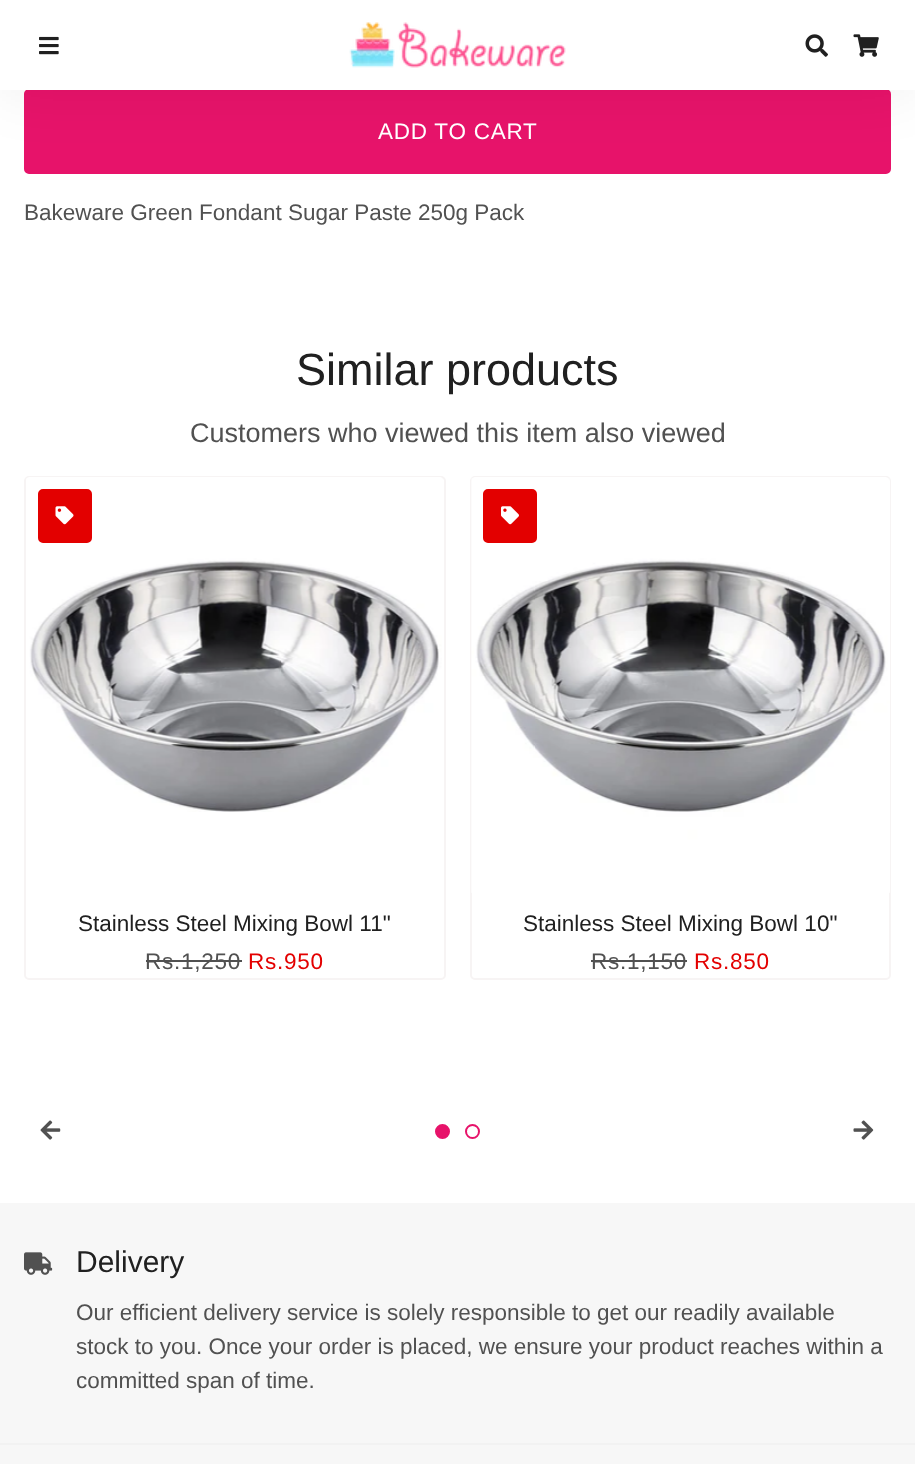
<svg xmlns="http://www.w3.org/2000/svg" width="915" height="1464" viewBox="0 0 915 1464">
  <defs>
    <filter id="blur1" x="-50%" y="-200%" width="200%" height="500%"><feGaussianBlur stdDeviation="30"/></filter>
  </defs>
  <rect width="100%" height="100%" fill="#ffffff"/>
  <rect x="25" y="90" width="865" height="83" rx="4" fill="#e7136a" stroke="#e7136a" stroke-width="2"/>
  <rect x="0" y="0" width="915" height="90" fill="#000000" fill-opacity="0.07" filter="url(#blur1)"/>
  <rect x="0" y="0" width="915" height="90" fill="#ffffff"/>
  <image x="39" y="36" width="20" height="19" href="img1.png"/>
  <image x="349" y="22" width="217" height="46" href="img2.png"/>
  <image x="805" y="34" width="23" height="23" href="img3.png"/>
  <image x="853" y="34" width="26" height="23" href="img4.png"/>
  <text x="378" y="139" font-family="Liberation Sans" font-size="22.5" letter-spacing="0.75" fill="#ffffff">ADD TO CART</text>
  <text x="24" y="220" font-family="Liberation Sans" font-size="22.5" fill="#515151">Bakeware Green Fondant Sugar Paste 250g Pack</text>
  <text x="296" y="385" font-family="Liberation Sans" font-size="45" fill="#202020">Similar products</text>
  <text x="190" y="442" font-family="Liberation Sans" font-size="27" fill="#515151">Customers who viewed this item also viewed</text>
  <rect x="25" y="477" width="420" height="502" rx="4" fill="none" stroke="#f7f4f4" stroke-width="2"/>
  <image x="26" y="477" width="416" height="335" href="img5.png"/>
  <rect x="39" y="490" width="52" height="52" rx="4" fill="#e30000" stroke="#e30000" stroke-width="2"/>
  <image x="55" y="506" width="19" height="19" href="img6.png"/>
  <text x="78" y="931" font-family="Liberation Sans" font-size="22.5" fill="#202020">Stainless Steel Mixing Bowl 11"</text>
  <text x="145" y="969" font-family="Liberation Sans" font-size="22.5" letter-spacing="0.75" fill="#515151">Rs.1,250</text>
  <rect x="146" y="960" width="96" height="2" fill="#515151"/>
  <text x="248" y="969" font-family="Liberation Sans" font-size="22.5" letter-spacing="0.75" fill="#e30000">Rs.950</text>
  <rect x="471" y="477" width="419" height="502" rx="4" fill="none" stroke="#f7f4f4" stroke-width="2"/>
  <image x="471" y="477" width="419" height="416" href="img7.png"/>
  <rect x="484" y="490" width="52" height="52" rx="4" fill="#e30000" stroke="#e30000" stroke-width="2"/>
  <image x="501" y="506" width="18" height="19" href="img8.png"/>
  <text x="523" y="931" font-family="Liberation Sans" font-size="22.5" fill="#202020">Stainless Steel Mixing Bowl 10"</text>
  <text x="591" y="969" font-family="Liberation Sans" font-size="22.5" letter-spacing="0.75" fill="#515151">Rs.1,150</text>
  <rect x="591" y="960" width="96" height="2" fill="#515151"/>
  <text x="694" y="969" font-family="Liberation Sans" font-size="22.5" letter-spacing="0.75" fill="#e30000">Rs.850</text>
  <image x="40" y="1120" width="21" height="20" href="img9.png"/>
  <circle cx="442.5" cy="1131.5" r="6.5" fill="#e7136a" stroke="#e7136a" stroke-width="2"/>
  <circle cx="472.5" cy="1131.5" r="6.5" fill="none" stroke="#e7136a" stroke-width="2"/>
  <image x="853" y="1120" width="21" height="20" href="img10.png"/>
  <rect x="0" y="1203" width="915" height="261" fill="#f7f7f7"/>
  <image x="24" y="1252" width="29" height="23" href="img11.png"/>
  <text x="76" y="1272" font-family="Liberation Sans" font-size="30" fill="#202020">Delivery</text>
  <text x="76" y="1320" font-family="Liberation Sans" font-size="22.5" fill="#515151">Our efficient delivery service is solely responsible to get our readily available</text>
  <text x="76" y="1354" font-family="Liberation Sans" font-size="22.5" fill="#515151">stock to you. Once your order is placed, we ensure your product reaches within a</text>
  <text x="76" y="1388" font-family="Liberation Sans" font-size="22.5" fill="#515151">committed span of time.</text>
  <rect x="0" y="1443" width="915" height="2" fill="#f2f2f2"/>
</svg>
